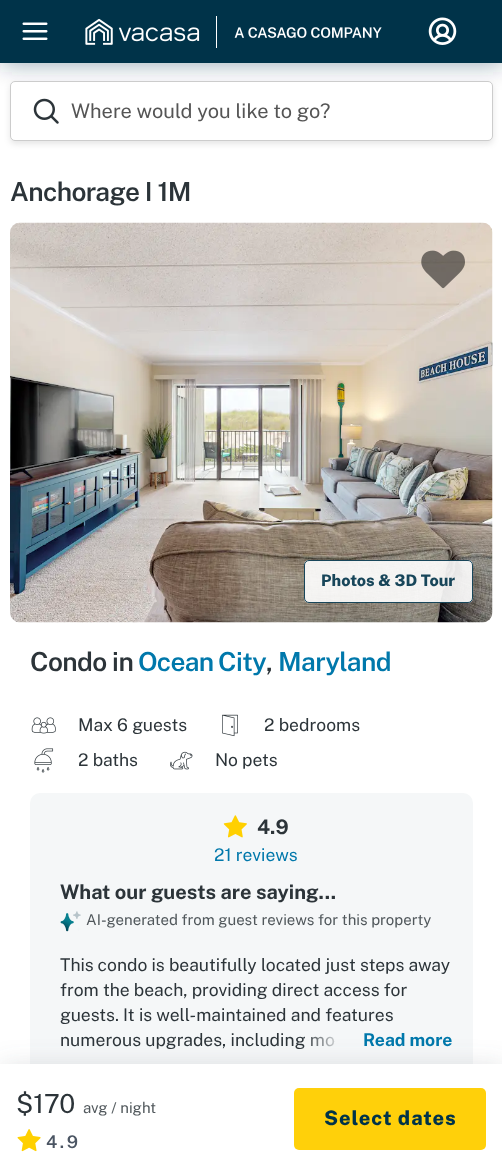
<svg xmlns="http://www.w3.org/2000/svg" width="502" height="1176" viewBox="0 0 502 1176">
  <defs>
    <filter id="blur1" x="-50%" y="-200%" width="200%" height="500%"><feGaussianBlur stdDeviation="12.5"/></filter>
    <filter id="blur2" x="-50%" y="-200%" width="200%" height="500%"><feGaussianBlur stdDeviation="3"/></filter>
    <linearGradient id="g1" gradientUnits="userSpaceOnUse" x1="303" y1="1040" x2="453" y2="1040"><stop offset="0" stop-color="#f5f7f8" stop-opacity="0"/><stop offset="0.27" stop-color="#f5f7f8"/></linearGradient>
  </defs>
  <rect width="100%" height="100%" fill="#ffffff"/>
  <rect x="1" y="1" width="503" height="63" fill="#003349" fill-opacity="0.4" filter="url(#blur1)"/>
  <rect x="0" y="0" width="502" height="63" fill="#003349"/>
  <image x="22" y="22" width="26" height="18" href="img1.png"/>
  <image x="85" y="16" width="297" height="32" href="img2.png"/>
  <image x="428" y="17" width="29" height="28" href="img3.png"/>
  <rect x="10" y="84" width="483" height="60" rx="5" fill="#000000" fill-opacity="0.1" filter="url(#blur2)"/>
  <rect x="10.5" y="81.5" width="482" height="59" rx="4.5" fill="#ffffff" stroke="#cccccc"/>
  <image x="33" y="98" width="26" height="26" href="img4.png"/>
  <text x="71" y="118" font-family="Public Sans" font-size="20" fill="#555555">Where would you like to go?</text>
  <text x="10" y="201" font-family="Public Sans" font-size="26.25" font-weight="600" letter-spacing="-0.6" fill="#2c3439">Anchorage I 1M</text>
  <image x="10" y="222" width="483" height="401" href="img5.png"/>
  <image x="421" y="250" width="44" height="39" href="img6.png"/>
  <rect x="304" y="560" width="169" height="43" rx="5" fill="#ffffff" fill-opacity="0.9"/>
  <rect x="304.5" y="560.5" width="168" height="42" rx="4.5" fill="none" stroke="#003349" stroke-opacity="0.9"/>
  <text x="321" y="586" font-family="Public Sans" font-size="16" font-weight="800" fill="#18465a">Photos &amp; 3D Tour</text>
  <text x="30" y="671" font-family="Public Sans" font-size="26.25" font-weight="600" letter-spacing="-0.6" fill="#2c3439">Condo in</text>
  <text x="138" y="671" word-spacing="-1" font-family="Public Sans" font-size="26.25" font-weight="600" letter-spacing="-0.6" fill="#0078ab">Ocean City</text>
  <text x="266" y="671" font-family="Public Sans" font-size="26.25" font-weight="600" letter-spacing="-0.6" fill="#2c3439">,</text>
  <text x="278" y="671" font-family="Public Sans" font-size="26.25" font-weight="600" letter-spacing="-0.6" fill="#0078ab">Maryland</text>
  <image x="31" y="717" width="25" height="17" href="img7.png"/>
  <text x="78" y="731" font-family="Public Sans" font-size="17.5" fill="#2c3439">Max 6 guests</text>
  <image x="222" y="714" width="16" height="23" href="img8.png"/>
  <text x="264" y="731" font-family="Public Sans" font-size="17.5" fill="#2c3439">2 bedrooms</text>
  <image x="34" y="748" width="20" height="25" href="img9.png"/>
  <text x="78" y="766" font-family="Public Sans" font-size="17.5" fill="#2c3439">2 baths</text>
  <image x="170" y="751" width="23" height="19" href="img10.png"/>
  <text x="215" y="766" font-family="Public Sans" font-size="17.5" fill="#2c3439">No pets</text>
  <rect x="30" y="793" width="443" height="310" rx="10" fill="#f5f7f8"/>
  <image x="223" y="815" width="24" height="23" href="img11.png"/>
  <text x="257" y="834" font-family="Public Sans" font-size="20" font-weight="bold" fill="#2c3439">4.9</text>
  <text x="214" y="861" font-family="Public Sans" font-size="17.5" fill="#0078ab">21 reviews</text>
  <text x="60" y="899" font-family="Public Sans" font-size="20" font-weight="bold" fill="#2c3439">What our guests are saying...</text>
  <image x="60" y="911" width="21" height="21" href="img12.png"/>
  <text x="86" y="925" font-family="Public Sans" font-size="15" fill="#51585c">AI-generated from guest reviews for this property</text>
  <text x="60" y="971" font-family="Public Sans" font-size="17.5" fill="#2c3439">This condo is beautifully located just steps away</text>
  <text x="60" y="996" font-family="Public Sans" font-size="17.5" fill="#2c3439">from the beach, providing direct access for</text>
  <text x="60" y="1021" font-family="Public Sans" font-size="17.5" fill="#2c3439">guests. It is well-maintained and features</text>
  <text x="60" y="1046" font-family="Public Sans" font-size="17.5" fill="#2c3439">numerous upgrades, including mo</text>
  <rect x="304" y="1036" width="30" height="11" fill="url(#g1)"/>
  <text x="363" y="1046" font-family="Public Sans" font-size="17.5" font-weight="bold" fill="#0078ab">Read more</text>
  <rect x="1" y="1065" width="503" height="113" fill="#707579" fill-opacity="0.2" filter="url(#blur1)"/>
  <rect x="0" y="1064" width="502" height="112" fill="#ffffff"/>
  <text x="16" y="1113" font-family="Public Sans" font-size="26.25" fill="#2c3439">$170</text>
  <text x="83" y="1113" font-family="Public Sans" font-size="15" fill="#51585c">avg / night</text>
  <image x="17" y="1129" width="24" height="23" href="img13.png"/>
  <text x="46" y="1148" font-family="Public Sans" font-size="17.5" font-weight="600" letter-spacing="2.5" fill="#4b5563">4.9</text>
  <rect x="294" y="1088" width="192" height="62" rx="5" fill="#ffd00a"/>
  <text x="324" y="1125" font-family="Public Sans" font-size="20" font-weight="800" letter-spacing="1" fill="#003349">Select dates</text>
</svg>
